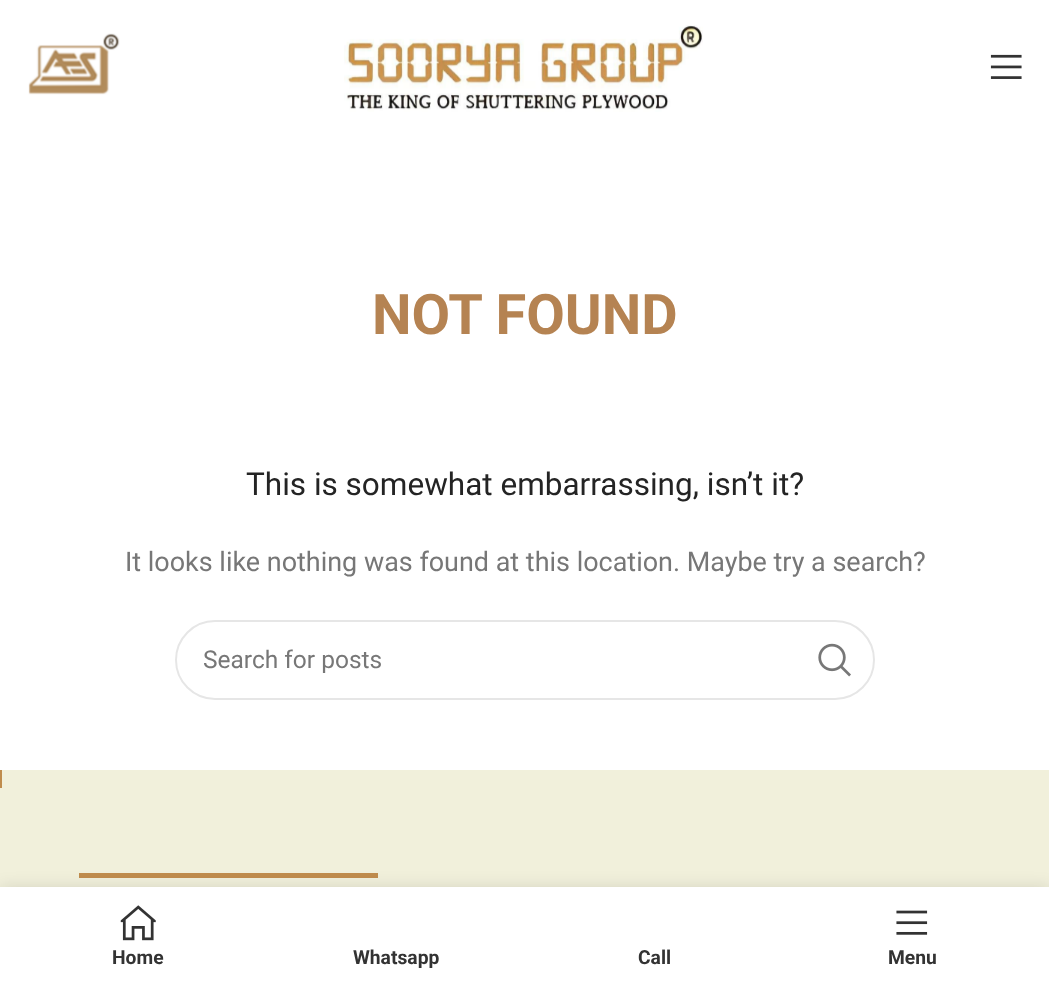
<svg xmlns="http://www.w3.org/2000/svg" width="1049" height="983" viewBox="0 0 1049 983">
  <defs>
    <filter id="blur1" x="-50%" y="-200%" width="200%" height="500%"><feGaussianBlur stdDeviation="8"/></filter>
  </defs>
  <rect width="100%" height="100%" fill="#ffffff"/>
  <image x="28" y="33" width="92" height="62" href="img1.png"/>
  <image x="344" y="25" width="359" height="87" href="img2.png"/>
  <image x="990" y="54" width="32" height="25" href="img3.png"/>
  <text x="372" y="334" font-family="Roboto" font-size="56" font-weight="bold" fill="#b58352">NOT FOUND</text>
  <text x="246" y="495" font-family="Roboto" font-size="31.5" fill="#242424">This is somewhat embarrassing, isn’t it?</text>
  <text x="125" y="571" font-family="Roboto" font-size="26.95" fill="#777777">It looks like nothing was found at this location. Maybe try a search?</text>
  <rect x="176" y="621" width="698" height="78" rx="39" fill="none" stroke="#e6e6e6" stroke-width="2"/>
  <text x="203" y="668" font-family="Roboto" font-size="24.5" fill="#777777">Search for posts</text>
  <image x="818" y="643" width="33" height="34" href="img4.png"/>
  <rect x="0" y="770" width="2" height="18" fill="#bf8c4d"/>
  <rect x="2" y="770" width="1047" height="18" fill="#f1f0db"/>
  <rect x="0" y="788" width="1049" height="99" fill="#f1f0db"/>
  <rect x="79" y="873" width="299" height="5" fill="#c08c4d"/>
  <rect x="0" y="887" width="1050" height="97" fill="#000000" fill-opacity="0.12" filter="url(#blur1)"/>
  <rect x="0" y="887" width="1049" height="96" fill="#ffffff"/>
  <image x="120" y="905" width="36" height="36" href="img5.png"/>
  <text x="112" y="964" font-family="Roboto" font-size="19.25" font-weight="bold" fill="#333333">Home</text>
  <text x="353" y="964" font-family="Roboto" font-size="19.25" font-weight="bold" fill="#333333">Whatsapp</text>
  <text x="638" y="964" font-family="Roboto" font-size="19.25" font-weight="bold" fill="#333333">Call</text>
  <image x="896" y="910" width="32" height="25" href="img6.png"/>
  <text x="888" y="964" font-family="Roboto" font-size="19.25" font-weight="bold" fill="#333333">Menu</text>
</svg>
